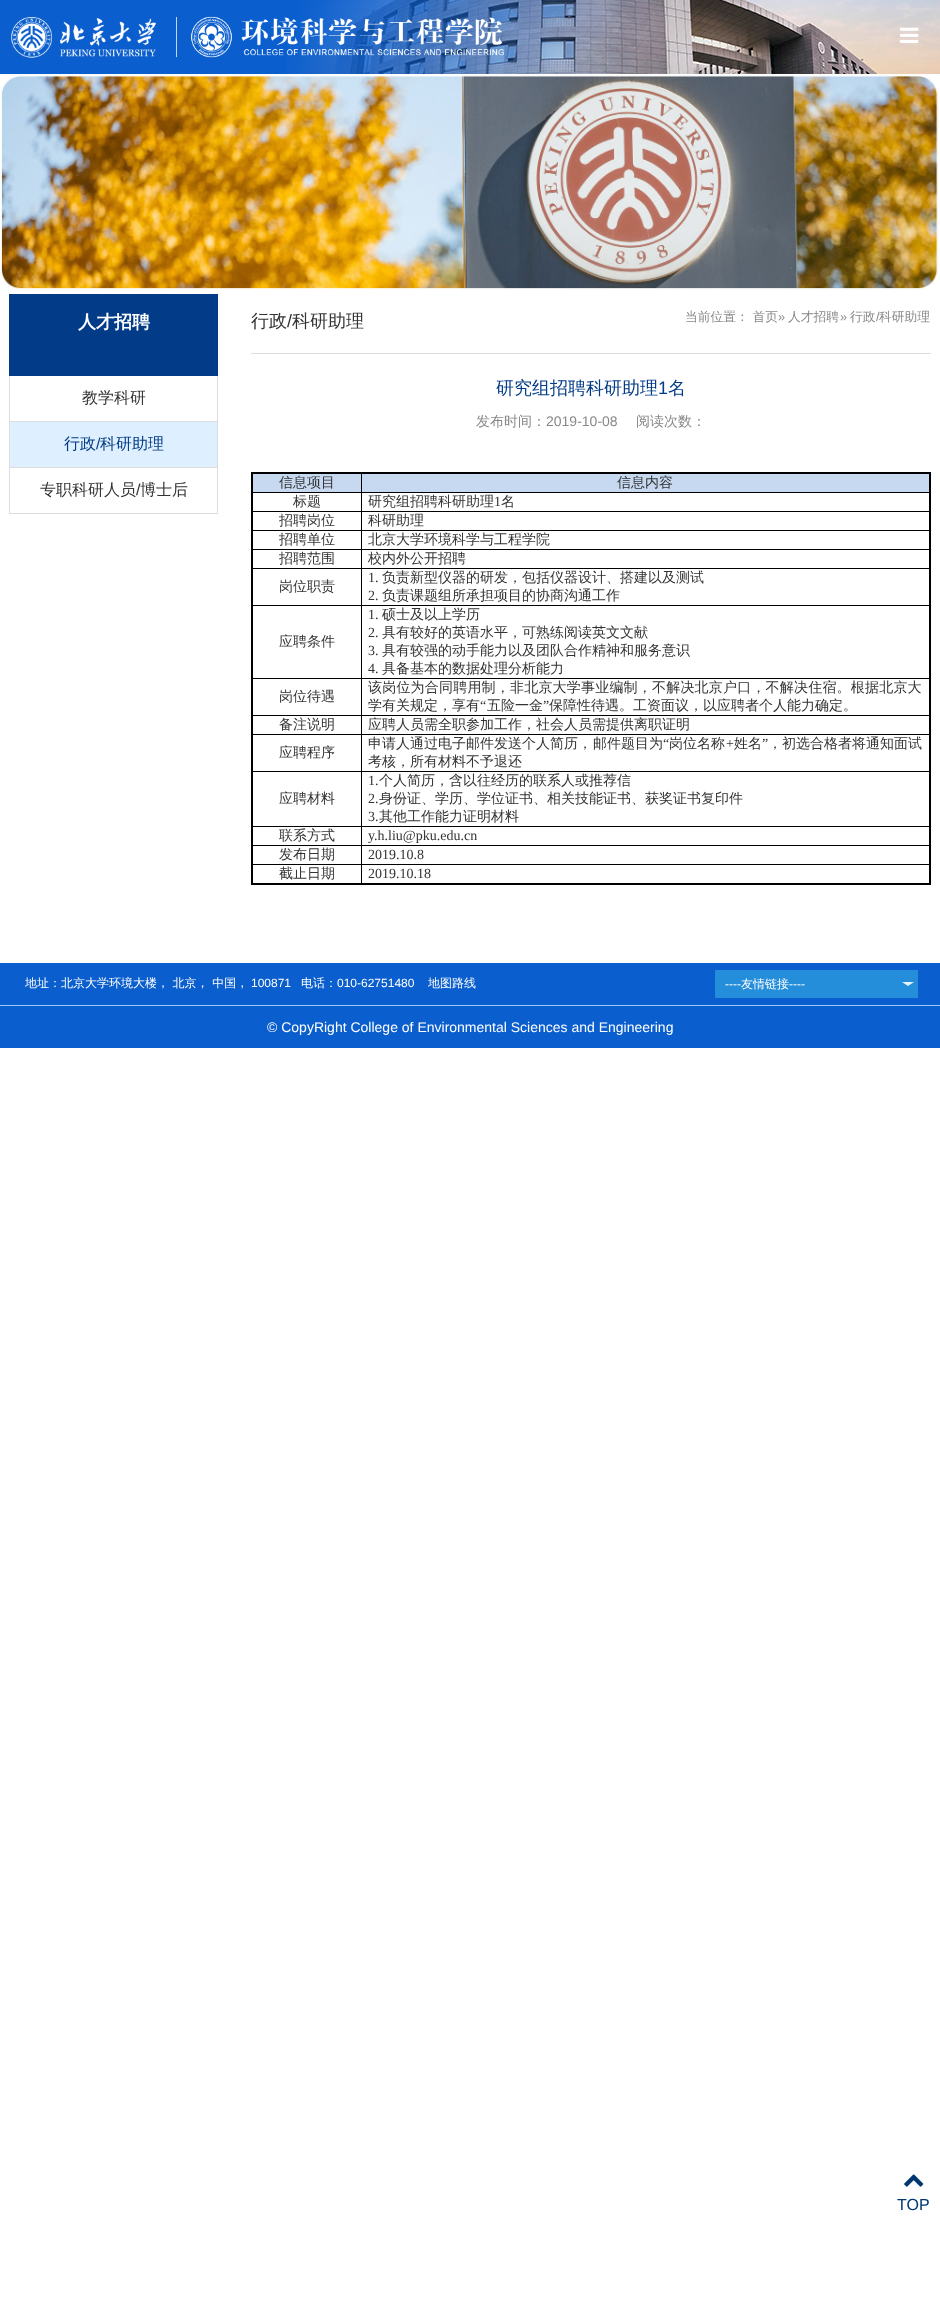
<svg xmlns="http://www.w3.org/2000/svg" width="940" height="2322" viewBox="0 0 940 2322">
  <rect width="100%" height="100%" fill="#ffffff"/>
  <rect x="0" y="0" width="287" height="74" fill="#0a5ece"/>
  <image x="287" y="0" width="653" height="74" href="img1.png"/>
  <image x="11" y="17" width="145" height="41" href="img2.png"/>
  <image x="176" y="16" width="328" height="42" href="img3.png"/>
  <image x="900" y="27" width="19" height="16" href="img4.png"/>
  <image x="0" y="74" width="939" height="216" href="img5.png"/>
  <rect x="9" y="294" width="209" height="82" fill="#023b87"/>
  <text x="78" y="328" font-family="WenQuanYi Zen Hei" font-size="18" font-weight="bold" fill="#ffffff">人才招聘</text>
  <rect x="217" y="376" width="1" height="138" fill="#dddddd"/>
  <rect x="9" y="376" width="1" height="138" fill="#dddddd"/>
  <rect x="10" y="421" width="207" height="1" fill="#dddddd"/>
  <text x="82" y="403" font-family="WenQuanYi Zen Hei" font-size="16" font-weight="500" fill="#333333">教学科研</text>
  <rect x="10" y="467" width="207" height="1" fill="#dddddd"/>
  <rect x="10" y="422" width="207" height="45" fill="#def0ff"/>
  <text x="64" y="449" font-family="WenQuanYi Zen Hei" font-size="16" font-weight="500" fill="#023b87">行政</text>
  <text x="96" y="449" font-family="Liberation Sans" font-size="16" fill="#023b87">/</text>
  <text x="100" y="449" font-family="WenQuanYi Zen Hei" font-size="16" font-weight="500" fill="#023b87">科研助理</text>
  <rect x="10" y="513" width="207" height="1" fill="#dddddd"/>
  <text x="40" y="495" font-family="WenQuanYi Zen Hei" font-size="16" font-weight="500" fill="#333333">专职科研人员</text>
  <text x="136" y="495" font-family="Liberation Sans" font-size="16" fill="#333333">/</text>
  <text x="140" y="495" font-family="WenQuanYi Zen Hei" font-size="16" font-weight="500" fill="#333333">博士后</text>
  <rect x="251" y="353" width="680" height="1" fill="#dddddd"/>
  <text x="251" y="327" font-family="WenQuanYi Zen Hei" font-size="18" font-weight="500" fill="#333333">行政</text>
  <text x="287" y="327" font-family="Liberation Sans" font-size="18" fill="#333333">/</text>
  <text x="292" y="327" font-family="WenQuanYi Zen Hei" font-size="18" font-weight="500" fill="#333333">科研助理</text>
  <text x="685" y="321" font-family="WenQuanYi Zen Hei" font-size="12.75" font-weight="500" fill="#888888">当前位置： 首页</text>
  <text x="778" y="321" font-family="Liberation Sans" font-size="12.75" fill="#888888">»</text>
  <text x="788" y="321" font-family="WenQuanYi Zen Hei" font-size="12.75" font-weight="500" fill="#888888">人才招聘</text>
  <text x="840" y="321" font-family="Liberation Sans" font-size="12.75" fill="#888888">»</text>
  <text x="850" y="321" font-family="WenQuanYi Zen Hei" font-size="12.75" font-weight="500" fill="#888888">行政</text>
  <text x="876" y="321" font-family="Liberation Sans" font-size="12.75" fill="#888888">/</text>
  <text x="879" y="321" font-family="WenQuanYi Zen Hei" font-size="12.75" font-weight="500" fill="#888888">科研助理</text>
  <text x="496" y="394" font-family="WenQuanYi Zen Hei" font-size="18" font-weight="500" fill="#023b87">研究组招聘科研助理</text>
  <text x="658" y="394" font-family="Liberation Sans" font-size="18" fill="#023b87">1</text>
  <text x="668" y="394" font-family="WenQuanYi Zen Hei" font-size="18" font-weight="500" fill="#023b87">名</text>
  <text x="476" y="426" font-family="WenQuanYi Zen Hei" font-size="14" font-weight="500" fill="#888888">发布时间：</text>
  <text x="546" y="426" font-family="Liberation Sans" font-size="14" fill="#888888">2019-10-08</text>
  <text x="636" y="426" font-family="WenQuanYi Zen Hei" font-size="14" font-weight="500" fill="#888888">阅读次数：</text>
  <rect x="361" y="492" width="569" height="1" fill="#000000"/>
  <rect x="361" y="511" width="569" height="1" fill="#000000"/>
  <rect x="361" y="530" width="569" height="1" fill="#000000"/>
  <rect x="361" y="549" width="569" height="1" fill="#000000"/>
  <rect x="361" y="568" width="569" height="1" fill="#000000"/>
  <rect x="361" y="605" width="569" height="1" fill="#000000"/>
  <rect x="361" y="678" width="569" height="1" fill="#000000"/>
  <rect x="361" y="715" width="569" height="1" fill="#000000"/>
  <rect x="361" y="734" width="569" height="1" fill="#000000"/>
  <rect x="361" y="771" width="569" height="1" fill="#000000"/>
  <rect x="361" y="826" width="569" height="1" fill="#000000"/>
  <rect x="361" y="845" width="569" height="1" fill="#000000"/>
  <rect x="361" y="864" width="569" height="1" fill="#000000"/>
  <rect x="361" y="864" width="1" height="21" fill="#000000"/>
  <rect x="252" y="864" width="110" height="1" fill="#000000"/>
  <rect x="361" y="845" width="1" height="20" fill="#000000"/>
  <rect x="252" y="845" width="110" height="1" fill="#000000"/>
  <rect x="361" y="826" width="1" height="20" fill="#000000"/>
  <rect x="252" y="826" width="110" height="1" fill="#000000"/>
  <rect x="361" y="771" width="1" height="56" fill="#000000"/>
  <rect x="252" y="771" width="110" height="1" fill="#000000"/>
  <rect x="361" y="734" width="1" height="38" fill="#000000"/>
  <rect x="252" y="734" width="110" height="1" fill="#000000"/>
  <rect x="361" y="715" width="1" height="20" fill="#000000"/>
  <rect x="252" y="715" width="110" height="1" fill="#000000"/>
  <rect x="361" y="678" width="1" height="38" fill="#000000"/>
  <rect x="252" y="678" width="110" height="1" fill="#000000"/>
  <rect x="361" y="605" width="1" height="74" fill="#000000"/>
  <rect x="252" y="605" width="110" height="1" fill="#000000"/>
  <rect x="361" y="568" width="1" height="38" fill="#000000"/>
  <rect x="252" y="568" width="110" height="1" fill="#000000"/>
  <rect x="361" y="549" width="1" height="20" fill="#000000"/>
  <rect x="252" y="549" width="110" height="1" fill="#000000"/>
  <rect x="361" y="530" width="1" height="20" fill="#000000"/>
  <rect x="252" y="530" width="110" height="1" fill="#000000"/>
  <rect x="361" y="511" width="1" height="20" fill="#000000"/>
  <rect x="252" y="511" width="110" height="1" fill="#000000"/>
  <rect x="361" y="492" width="1" height="20" fill="#000000"/>
  <rect x="252" y="492" width="110" height="1" fill="#000000"/>
  <rect x="361" y="473" width="1" height="20" fill="#000000"/>
  <rect x="251" y="472" width="680" height="2" fill="#000000"/>
  <rect x="929" y="472" width="2" height="413" fill="#000000"/>
  <rect x="251" y="883" width="680" height="2" fill="#000000"/>
  <rect x="251" y="472" width="2" height="413" fill="#000000"/>
  <rect x="253" y="474" width="108" height="18" fill="#c6d9f1"/>
  <text x="279" y="487" font-family="WenQuanYi Zen Hei" font-size="14" font-weight="500" fill="#333333">信息项目</text>
  <rect x="362" y="474" width="567" height="18" fill="#c6d9f1"/>
  <text x="617" y="487" font-family="WenQuanYi Zen Hei" font-size="14" font-weight="500" fill="#333333">信息内容</text>
  <text x="293" y="506" font-family="WenQuanYi Zen Hei" font-size="14" font-weight="500" fill="#333333">标题</text>
  <text x="368" y="506" font-family="WenQuanYi Zen Hei" font-size="14" font-weight="500" fill="#333333">研究组招聘科研助理</text>
  <text x="494" y="506" font-family="Liberation Serif" font-size="14" fill="#333333">1</text>
  <text x="501" y="506" font-family="WenQuanYi Zen Hei" font-size="14" font-weight="500" fill="#333333">名</text>
  <text x="279" y="525" font-family="WenQuanYi Zen Hei" font-size="14" font-weight="500" fill="#333333">招聘岗位</text>
  <text x="368" y="525" font-family="WenQuanYi Zen Hei" font-size="14" font-weight="500" fill="#333333">科研助理</text>
  <text x="279" y="544" font-family="WenQuanYi Zen Hei" font-size="14" font-weight="500" fill="#333333">招聘单位</text>
  <text x="368" y="544" font-family="WenQuanYi Zen Hei" font-size="14" font-weight="500" fill="#333333">北京大学环境科学与工程学院</text>
  <text x="279" y="563" font-family="WenQuanYi Zen Hei" font-size="14" font-weight="500" fill="#333333">招聘范围</text>
  <text x="368" y="563" font-family="WenQuanYi Zen Hei" font-size="14" font-weight="500" fill="#333333">校内外公开招聘</text>
  <text x="279" y="591" font-family="WenQuanYi Zen Hei" font-size="14" font-weight="500" fill="#333333">岗位职责</text>
  <text x="368" y="582" font-family="Liberation Serif" font-size="14" fill="#333333">1.</text>
  <text x="382" y="582" font-family="WenQuanYi Zen Hei" font-size="14" font-weight="500" fill="#333333">负责新型仪器的研发，包括仪器设计、搭建以及测试</text>
  <text x="368" y="600" font-family="Liberation Serif" font-size="14" fill="#333333">2.</text>
  <text x="382" y="600" font-family="WenQuanYi Zen Hei" font-size="14" font-weight="500" fill="#333333">负责课题组所承担项目的协商沟通工作</text>
  <text x="279" y="646" font-family="WenQuanYi Zen Hei" font-size="14" font-weight="500" fill="#333333">应聘条件</text>
  <text x="368" y="619" font-family="Liberation Serif" font-size="14" fill="#333333">1.</text>
  <text x="382" y="619" font-family="WenQuanYi Zen Hei" font-size="14" font-weight="500" fill="#333333">硕士及以上学历</text>
  <text x="368" y="637" font-family="Liberation Serif" font-size="14" fill="#333333">2.</text>
  <text x="382" y="637" font-family="WenQuanYi Zen Hei" font-size="14" font-weight="500" fill="#333333">具有较好的英语水平，可熟练阅读英文文献</text>
  <text x="368" y="655" font-family="Liberation Serif" font-size="14" fill="#333333">3.</text>
  <text x="382" y="655" font-family="WenQuanYi Zen Hei" font-size="14" font-weight="500" fill="#333333">具有较强的动手能力以及团队合作精神和服务意识</text>
  <text x="368" y="673" font-family="Liberation Serif" font-size="14" fill="#333333">4.</text>
  <text x="382" y="673" font-family="WenQuanYi Zen Hei" font-size="14" font-weight="500" fill="#333333">具备基本的数据处理分析能力</text>
  <text x="279" y="701" font-family="WenQuanYi Zen Hei" font-size="14" font-weight="500" fill="#333333">岗位待遇</text>
  <text x="368" y="692" font-family="WenQuanYi Zen Hei" font-size="14" font-weight="500" letter-spacing="0.2" fill="#333333">该岗位为合同聘用制，非北京大学事业编制，不解决北京户口，不解决住宿。根据北京大</text>
  <text x="368" y="710" font-family="WenQuanYi Zen Hei" font-size="14" font-weight="500" fill="#333333">学有关规定，享有</text>
  <text x="480" y="710" font-family="Liberation Serif" font-size="14" fill="#333333">“</text>
  <text x="487" y="710" font-family="WenQuanYi Zen Hei" font-size="14" font-weight="500" fill="#333333">五险一金</text>
  <text x="543" y="710" font-family="Liberation Serif" font-size="14" fill="#333333">”</text>
  <text x="549" y="710" font-family="WenQuanYi Zen Hei" font-size="14" font-weight="500" fill="#333333">保障性待遇。工资面议，以应聘者个人能力确定。</text>
  <text x="279" y="729" font-family="WenQuanYi Zen Hei" font-size="14" font-weight="500" fill="#333333">备注说明</text>
  <text x="368" y="729" font-family="WenQuanYi Zen Hei" font-size="14" font-weight="500" fill="#333333">应聘人员需全职参加工作，社会人员需提供离职证明</text>
  <text x="279" y="757" font-family="WenQuanYi Zen Hei" font-size="14" font-weight="500" fill="#333333">应聘程序</text>
  <text x="368" y="748" font-family="WenQuanYi Zen Hei" font-size="14" font-weight="500" fill="#333333">申请人通过电子邮件发送个人简历，</text>
  <text x="593" y="748" font-family="WenQuanYi Zen Hei" font-size="14" font-weight="500" fill="#333333">邮件题目为</text>
  <text x="663" y="748" font-family="Liberation Serif" font-size="14" fill="#333333">“</text>
  <text x="669" y="748" font-family="WenQuanYi Zen Hei" font-size="14" font-weight="500" fill="#333333">岗位名称</text>
  <text x="726" y="748" font-family="Liberation Serif" font-size="14" fill="#333333">+</text>
  <text x="734" y="748" font-family="WenQuanYi Zen Hei" font-size="14" font-weight="500" fill="#333333">姓名</text>
  <text x="762" y="748" font-family="Liberation Serif" font-size="14" fill="#333333">”</text>
  <text x="768" y="748" font-family="WenQuanYi Zen Hei" font-size="14" font-weight="500" fill="#333333">，初选合格者将通知面试</text>
  <text x="368" y="766" font-family="WenQuanYi Zen Hei" font-size="14" font-weight="500" fill="#333333">考核，所有材料不予退还</text>
  <text x="279" y="803" font-family="WenQuanYi Zen Hei" font-size="14" font-weight="500" fill="#333333">应聘材料</text>
  <text x="368" y="785" font-family="Liberation Serif" font-size="14" fill="#333333">1.</text>
  <text x="379" y="785" font-family="WenQuanYi Zen Hei" font-size="14" font-weight="500" fill="#333333">个人简历，含以往经历的联系人或推荐信</text>
  <text x="368" y="803" font-family="Liberation Serif" font-size="14" fill="#333333">2.</text>
  <text x="379" y="803" font-family="WenQuanYi Zen Hei" font-size="14" font-weight="500" fill="#333333">身份证、学历、学位证书、相关技能证书、获奖证书复印件</text>
  <text x="368" y="821" font-family="Liberation Serif" font-size="14" fill="#333333">3.</text>
  <text x="379" y="821" font-family="WenQuanYi Zen Hei" font-size="14" font-weight="500" fill="#333333">其他工作能力证明材料</text>
  <text x="279" y="840" font-family="WenQuanYi Zen Hei" font-size="14" font-weight="500" fill="#333333">联系方式</text>
  <text x="368" y="840" font-family="Liberation Serif" font-size="14" fill="#333333">y.h.liu@pku.edu.cn</text>
  <text x="279" y="859" font-family="WenQuanYi Zen Hei" font-size="14" font-weight="500" fill="#333333">发布日期</text>
  <text x="368" y="859" font-family="Liberation Serif" font-size="14" fill="#333333">2019.10.8</text>
  <text x="279" y="878" font-family="WenQuanYi Zen Hei" font-size="14" font-weight="500" fill="#333333">截止日期</text>
  <text x="368" y="878" font-family="Liberation Serif" font-size="14" fill="#333333">2019.10.18</text>
  <rect x="0" y="963" width="940" height="85" fill="#0a5ece"/>
  <text x="25" y="987" font-family="WenQuanYi Zen Hei" font-size="12" font-weight="500" fill="#ffffff">地址：北京大学环境大楼， 北京， 中国，</text>
  <text x="251" y="987" font-family="Liberation Sans" font-size="12" fill="#ffffff">100871</text>
  <text x="301" y="987" font-family="WenQuanYi Zen Hei" font-size="12" font-weight="500" fill="#ffffff">电话：</text>
  <text x="337" y="987" font-family="Liberation Sans" font-size="12" fill="#ffffff">010-62751480</text>
  <text x="428" y="987" font-family="WenQuanYi Zen Hei" font-size="12" font-weight="500" fill="#ffffff">地图路线</text>
  <rect x="715" y="970" width="203" height="28" fill="#248eda"/>
  <image x="902" y="982" width="12" height="4" href="img6.png"/>
  <text x="725" y="988" font-family="Liberation Sans" font-size="12" fill="#ffffff">----</text>
  <text x="741" y="988" font-family="WenQuanYi Zen Hei" font-size="12" font-weight="500" fill="#ffffff">友情链接</text>
  <text x="789" y="988" font-family="Liberation Sans" font-size="12" fill="#ffffff">----</text>
  <rect x="0" y="1005" width="940" height="1" fill="#9dc9f5"/>
  <text x="267" y="1032" font-family="Liberation Sans" font-size="14" fill="#ffffff">© CopyRight College of Environmental Sciences and Engineering</text>
  <image x="904" y="2174" width="20" height="13" href="img7.png"/>
  <text x="897" y="2210" font-family="Liberation Sans" font-size="16" fill="#003770">TOP</text>
</svg>
